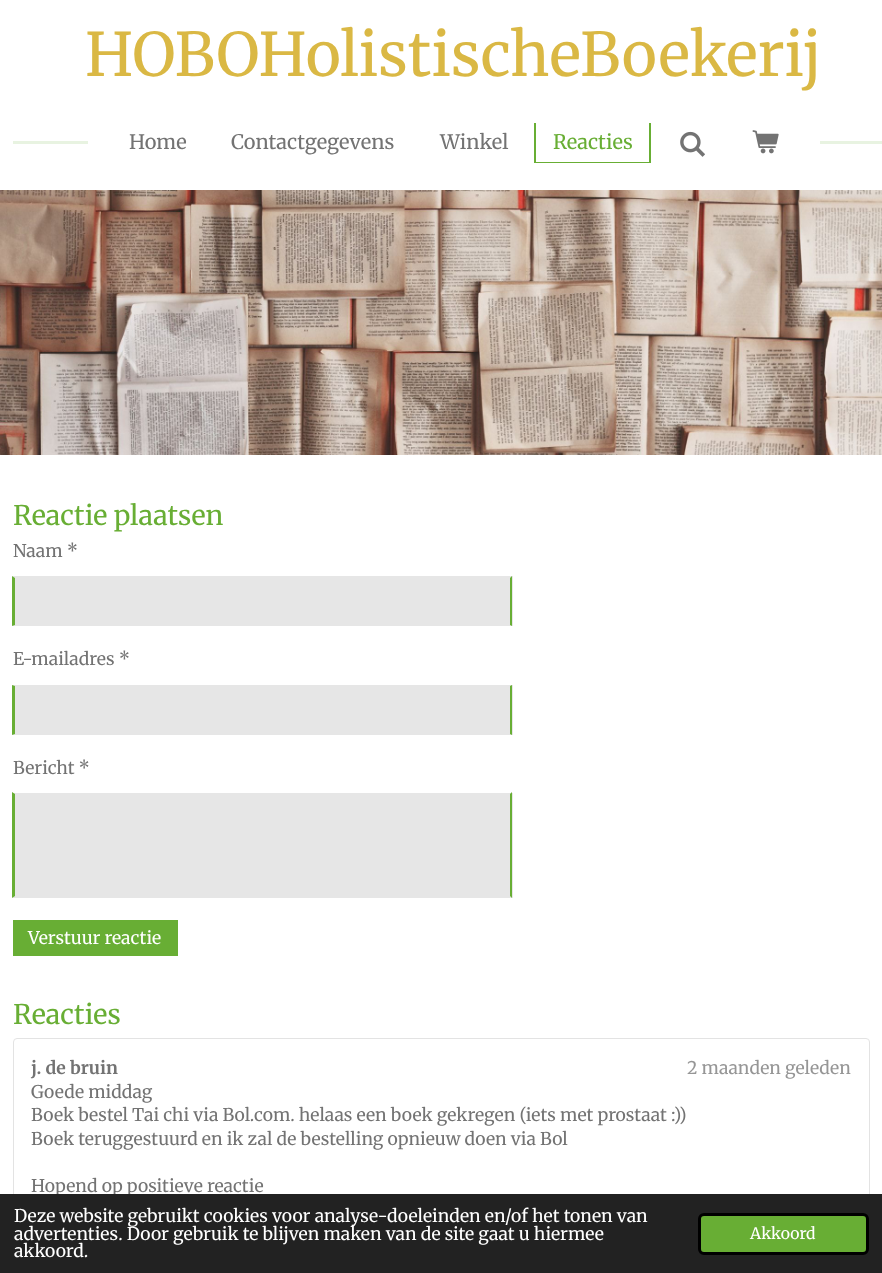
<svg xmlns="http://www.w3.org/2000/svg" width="882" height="1273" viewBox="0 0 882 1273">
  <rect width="100%" height="100%" fill="#ffffff"/>
  <text x="85" y="76" font-family="Merriweather" font-size="60" fill="#dab844">HOBOHolistischeBoekerij</text>
  <rect x="13" y="141" width="75" height="3" fill="#e8f3e1"/>
  <text x="129" y="149" font-family="Merriweather" font-size="20" fill="#737373">Home</text>
  <text x="231" y="149" font-family="Merriweather" font-size="20" fill="#737373">Contactgegevens</text>
  <text x="440" y="149" font-family="Merriweather" font-size="20" fill="#737373">Winkel</text>
  <path d="M539 162V163H651V123H649V162Z" fill="#68ae34"/>
  <path d="M534 123V163H646V162H536V123Z" fill="#68ae34"/>
  <text x="553" y="149" font-family="Merriweather" font-size="20" fill="#68ae34">Reacties</text>
  <image x="680" y="131" width="25" height="26" href="img1.png"/>
  <image x="752" y="130" width="27" height="24" href="img2.png"/>
  <rect x="820" y="141" width="62" height="3" fill="#e8f3e1"/>
  <image x="0" y="190" width="882" height="265" href="img3.png"/>
  <text x="13" y="525" font-family="Merriweather" font-size="27" fill="#68ae34">Reactie plaatsen</text>
  <text x="13" y="557" font-family="Merriweather" font-size="17.5" fill="#737373">Naam *</text>
  <rect x="13" y="576" width="500" height="50" fill="#e6e6e6"/>
  <path d="M512 576V626L510 625V578Z" fill="#68ae34"/>
  <path d="M12 626V576L15 578V625Z" fill="#68ae34"/>
  <text x="13" y="665" font-family="Merriweather" font-size="17.5" fill="#737373">E-mailadres *</text>
  <rect x="13" y="685" width="500" height="50" fill="#e6e6e6"/>
  <path d="M512 685V735L510 734V686Z" fill="#68ae34"/>
  <path d="M12 735V685L15 686V734Z" fill="#68ae34"/>
  <text x="13" y="774" font-family="Merriweather" font-size="17.5" fill="#737373">Bericht *</text>
  <rect x="13" y="793" width="500" height="105" fill="#e6e6e6"/>
  <path d="M512 792V898L510 896V794Z" fill="#68ae34"/>
  <path d="M12 898V792L15 794V896Z" fill="#68ae34"/>
  <rect x="13" y="920" width="165" height="36" fill="#68ae34"/>
  <text x="28" y="944" font-family="Merriweather" font-size="17.5" fill="#ffffff">Verstuur reactie</text>
  <text x="13" y="1024" font-family="Merriweather" font-size="27" fill="#68ae34">Reacties</text>
  <rect x="13.5" y="1038.5" width="856" height="202" rx="3.5" fill="none" stroke="#e3e3e3"/>
  <text x="31" y="1074" font-family="Merriweather" font-size="17.5" font-weight="bold" fill="#737373">j. de bruin</text>
  <text x="687" y="1074" font-family="Merriweather" font-size="17.5" fill="#969696">2 maanden geleden</text>
  <text x="31" y="1098" font-family="Merriweather" font-size="17.5" fill="#737373">Goede middag</text>
  <text x="31" y="1121" font-family="Merriweather" font-size="17.5" fill="#737373">Boek bestel Tai chi via Bol.com. helaas een boek gekregen (iets met prostaat :))</text>
  <text x="31" y="1145" font-family="Merriweather" font-size="17.5" fill="#737373">Boek teruggestuurd en ik zal de bestelling opnieuw doen via Bol</text>
  <text x="31" y="1192" font-family="Merriweather" font-size="17.5" fill="#737373">Hopend op positieve reactie</text>
  <rect x="0" y="1194" width="882" height="79" fill="#222222"/>
  <text x="14" y="1222" font-family="Merriweather" font-size="17.5" fill="#ffffff">Deze website gebruikt cookies voor analyse-doeleinden en/of het tonen van</text>
  <text x="14" y="1240" font-family="Merriweather" font-size="17.5" fill="#ffffff">advertenties. Door gebruik te blijven maken van de site gaat u hiermee</text>
  <text x="14" y="1257" font-family="Merriweather" font-size="17.5" fill="#ffffff">akkoord.</text>
  <rect x="699.5" y="1214.5" width="168" height="39" rx="4.5" fill="#68ae34" stroke="#000000" stroke-width="3"/>
  <text x="750" y="1239" font-family="Merriweather" font-size="15.75" fill="#ffffff">Akkoord</text>
</svg>
